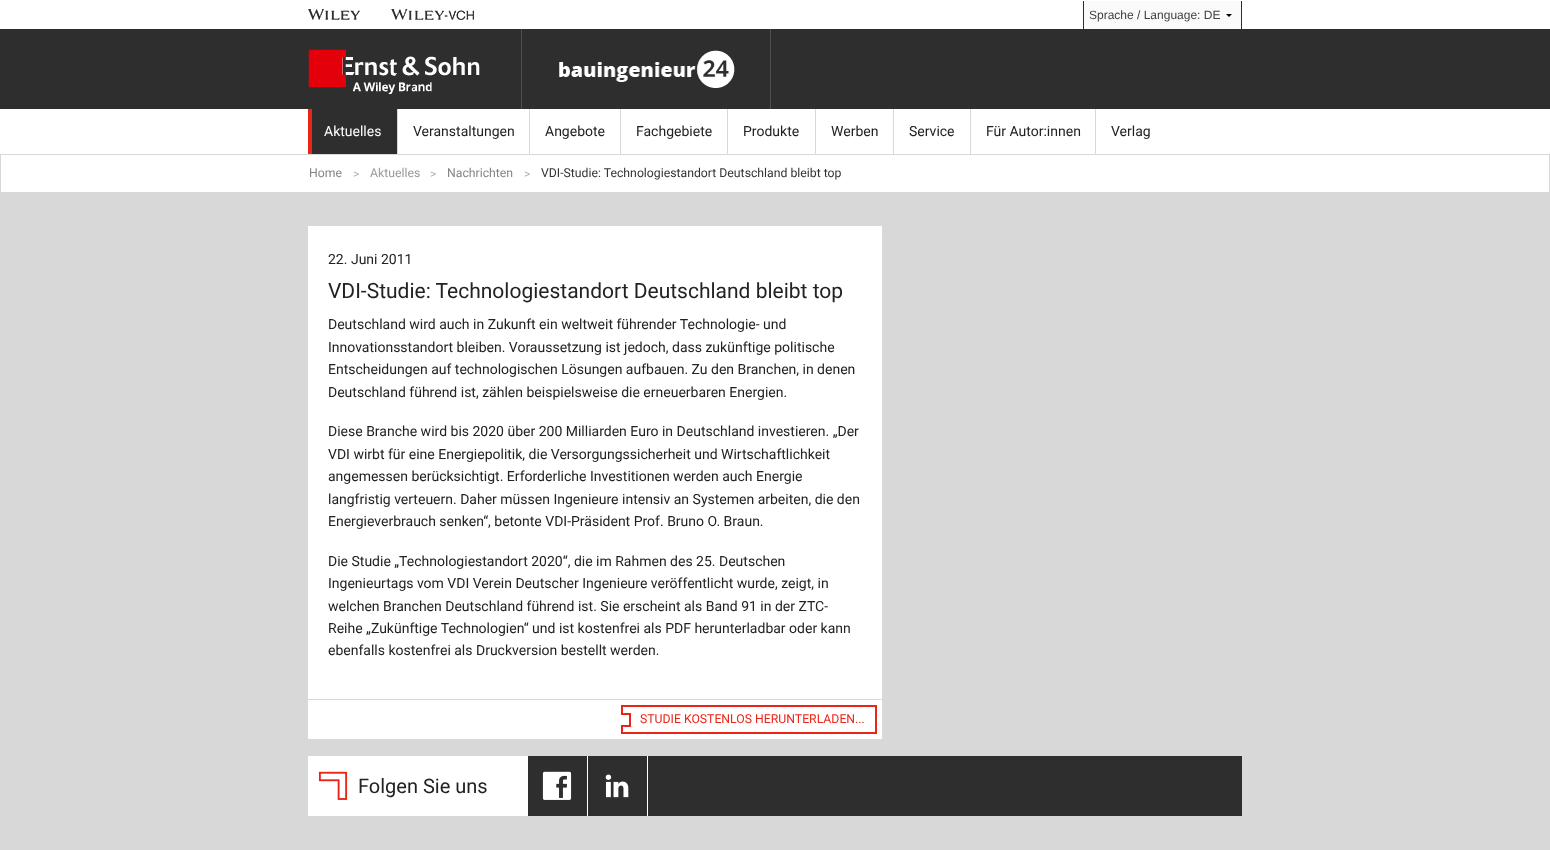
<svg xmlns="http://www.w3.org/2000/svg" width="1550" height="850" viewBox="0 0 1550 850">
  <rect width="100%" height="100%" fill="#d8d8d8"/>
  <rect x="0" y="0" width="1550" height="29" fill="#ffffff"/>
  <image x="308" y="9" width="52" height="11" href="img1.png"/>
  <image x="391" y="9" width="83" height="11" href="img2.png"/>
  <rect x="1084" y="1" width="157" height="28" fill="#fafafa"/>
  <path d="M1232 14L1229 17L1226 14Z" fill="#000000"/>
  <rect x="1241" y="1" width="1" height="28" fill="#2e2e2e"/>
  <rect x="1083" y="1" width="1" height="28" fill="#2e2e2e"/>
  <text x="1089" y="19" font-family="Liberation Sans" font-size="12" fill="#3f3f3f">Sprache / Language: DE</text>
  <rect x="0" y="29" width="1550" height="80" fill="#2e2e2e"/>
  <rect x="521" y="29" width="1" height="80" fill="#4e4e4e"/>
  <image x="308" y="49" width="172" height="46" href="img3.png"/>
  <rect x="770" y="29" width="1" height="80" fill="#4e4e4e"/>
  <image x="559" y="50" width="176" height="38" href="img4.png"/>
  <rect x="0" y="109" width="1550" height="45" fill="#ffffff"/>
  <rect x="312" y="109" width="85" height="45" fill="#2e2e2e"/>
  <rect x="308" y="109" width="4" height="45" fill="#eb2418"/>
  <text x="324" y="136" font-family="Roboto" font-size="14" fill="#ffffff">Aktuelles</text>
  <rect x="397" y="109" width="1" height="45" fill="#d8d8d8"/>
  <text x="413" y="136" font-family="Roboto" font-size="14" fill="#222222">Veranstaltungen</text>
  <rect x="529" y="109" width="1" height="45" fill="#d8d8d8"/>
  <text x="545" y="136" font-family="Roboto" font-size="14" fill="#222222">Angebote</text>
  <rect x="620" y="109" width="1" height="45" fill="#d8d8d8"/>
  <text x="636" y="136" font-family="Roboto" font-size="14" fill="#222222">Fachgebiete</text>
  <rect x="727" y="109" width="1" height="45" fill="#d8d8d8"/>
  <text x="743" y="136" font-family="Roboto" font-size="14" fill="#222222">Produkte</text>
  <rect x="815" y="109" width="1" height="45" fill="#d8d8d8"/>
  <text x="831" y="136" font-family="Roboto" font-size="14" fill="#222222">Werben</text>
  <rect x="893" y="109" width="1" height="45" fill="#d8d8d8"/>
  <text x="909" y="136" font-family="Roboto" font-size="14" fill="#222222">Service</text>
  <rect x="970" y="109" width="1" height="45" fill="#d8d8d8"/>
  <text x="986" y="136" font-family="Roboto" font-size="14" fill="#222222">Für Autor:innen</text>
  <rect x="1095" y="109" width="1" height="45" fill="#d8d8d8"/>
  <text x="1111" y="136" font-family="Roboto" font-size="14" fill="#222222">Verlag</text>
  <rect x="1" y="155" width="1548" height="37" fill="#ffffff"/>
  <text x="309" y="177" font-family="Roboto" font-size="12.25" fill="#868585">Home</text>
  <text x="353" y="178" font-family="Roboto" font-size="12.25" fill="#aaaaaa">&gt;</text>
  <text x="370" y="177" font-family="Roboto" font-size="12.25" fill="#999999">Aktuelles</text>
  <text x="430" y="178" font-family="Roboto" font-size="12.25" fill="#aaaaaa">&gt;</text>
  <text x="447" y="177" font-family="Roboto" font-size="12.25" fill="#868585">Nachrichten</text>
  <text x="524" y="178" font-family="Roboto" font-size="12.25" fill="#aaaaaa">&gt;</text>
  <text x="541" y="177" font-family="Roboto" font-size="12.25" fill="#333333">VDI-Studie: Technologiestandort Deutschland bleibt top</text>
  <rect x="308" y="226" width="574" height="513" fill="#ffffff"/>
  <text x="328" y="264" font-family="Roboto" font-size="14" fill="#222222">22. Juni 2011</text>
  <text x="328" y="298" font-family="Roboto" font-size="21" fill="#222222">VDI-Studie: Technologiestandort Deutschland bleibt top</text>
  <text x="328" y="329" font-family="Roboto" font-size="14" fill="#222222">Deutschland wird auch in Zukunft ein weltweit führender Technologie- und</text>
  <text x="328" y="352" font-family="Roboto" font-size="14" fill="#222222">Innovationsstandort bleiben. Voraussetzung ist jedoch, dass zukünftige politische</text>
  <text x="328" y="374" font-family="Roboto" font-size="14" fill="#222222">Entscheidungen auf technologischen Lösungen aufbauen. Zu den Branchen, in denen</text>
  <text x="328" y="397" font-family="Roboto" font-size="14" fill="#222222">Deutschland führend ist, zählen beispielsweise die erneuerbaren Energien.</text>
  <text x="328" y="436" font-family="Roboto" font-size="14" fill="#222222">Diese Branche wird bis 2020 über 200 Milliarden Euro in Deutschland investieren. „Der</text>
  <text x="328" y="459" font-family="Roboto" font-size="14" fill="#222222">VDI wirbt für eine Energiepolitik, die Versorgungssicherheit und Wirtschaftlichkeit</text>
  <text x="328" y="481" font-family="Roboto" font-size="14" fill="#222222">angemessen berücksichtigt. Erforderliche Investitionen werden auch Energie</text>
  <text x="328" y="504" font-family="Roboto" font-size="14" fill="#222222">langfristig verteuern. Daher müssen Ingenieure intensiv an Systemen arbeiten, die den</text>
  <text x="328" y="526" font-family="Roboto" font-size="14" fill="#222222">Energieverbrauch senken“, betonte VDI-Präsident Prof. Bruno O. Braun.</text>
  <text x="328" y="566" font-family="Roboto" font-size="14" fill="#222222">Die Studie „Technologiestandort 2020“, die im Rahmen des 25. Deutschen</text>
  <text x="328" y="588" font-family="Roboto" font-size="14" fill="#222222">Ingenieurtags vom VDI Verein Deutscher Ingenieure veröffentlicht wurde, zeigt, in</text>
  <text x="328" y="611" font-family="Roboto" font-size="14" fill="#222222">welchen Branchen Deutschland führend ist. Sie erscheint als Band 91 in der ZTC-</text>
  <text x="328" y="633" font-family="Roboto" font-size="14" fill="#222222">Reihe „Zukünftige Technologien“ und ist kostenfrei als PDF herunterladbar oder kann</text>
  <text x="328" y="655" font-family="Roboto" font-size="14" fill="#222222">ebenfalls kostenfrei als Druckversion bestellt werden.</text>
  <rect x="308" y="699" width="574" height="1" fill="#d8d8d8"/>
  <rect x="630" y="706" width="246" height="27" fill="none" stroke="#eb2418" stroke-width="2"/>
  <rect x="623" y="707" width="8" height="6" fill="#ffffff"/>
  <rect x="621" y="705" width="10" height="2" fill="#eb2418"/>
  <rect x="621" y="713" width="10" height="2" fill="#eb2418"/>
  <rect x="621" y="705" width="2" height="10" fill="#eb2418"/>
  <text x="640" y="723" font-family="Roboto" font-size="12.25" fill="#eb2418">STUDIE KOSTENLOS HERUNTERLADEN...</text>
  <rect x="623" y="727" width="8" height="5" fill="#ffffff"/>
  <rect x="621" y="725" width="10" height="2" fill="#eb2418"/>
  <rect x="621" y="732" width="10" height="2" fill="#eb2418"/>
  <rect x="621" y="725" width="2" height="9" fill="#eb2418"/>
  <rect x="528" y="756" width="714" height="60" fill="#2e2e2e"/>
  <rect x="308" y="756" width="220" height="60" fill="#ffffff"/>
  <image x="318" y="771" width="30" height="29" href="img5.png"/>
  <text x="358" y="793" font-family="Roboto" font-size="20" fill="#222222">Folgen Sie uns</text>
  <rect x="587" y="756" width="1" height="60" fill="#ffffff"/>
  <image x="542" y="771" width="30" height="29" href="img6.png"/>
  <rect x="647" y="756" width="1" height="60" fill="#ffffff"/>
  <image x="605" y="774" width="24" height="24" href="img7.png"/>
</svg>
